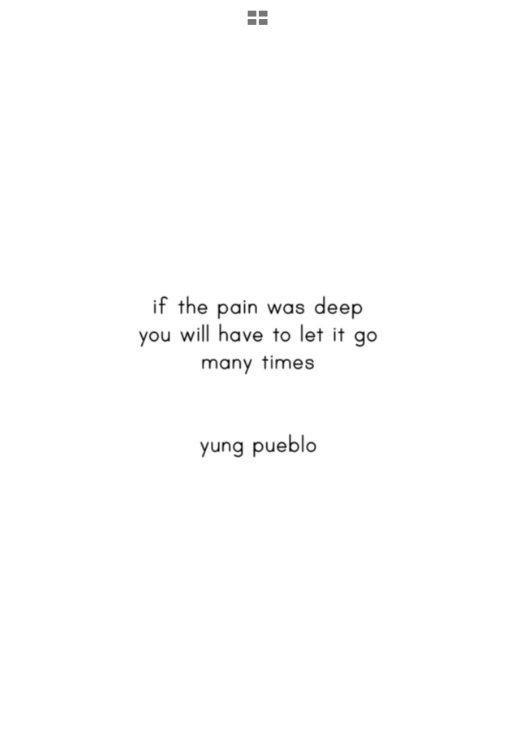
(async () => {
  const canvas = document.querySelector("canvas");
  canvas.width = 515;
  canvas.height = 731;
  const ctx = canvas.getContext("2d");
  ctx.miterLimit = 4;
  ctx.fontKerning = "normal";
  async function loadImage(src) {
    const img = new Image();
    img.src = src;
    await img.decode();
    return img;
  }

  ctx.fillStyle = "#ffffff";
  ctx.fillRect(0, 0, 515, 731);
  ctx.drawImage(await loadImage("img/1.png"), 247, 10, 21, 15);
  ctx.drawImage(await loadImage("img/2.png"), 138, 295, 240, 163);
})();
